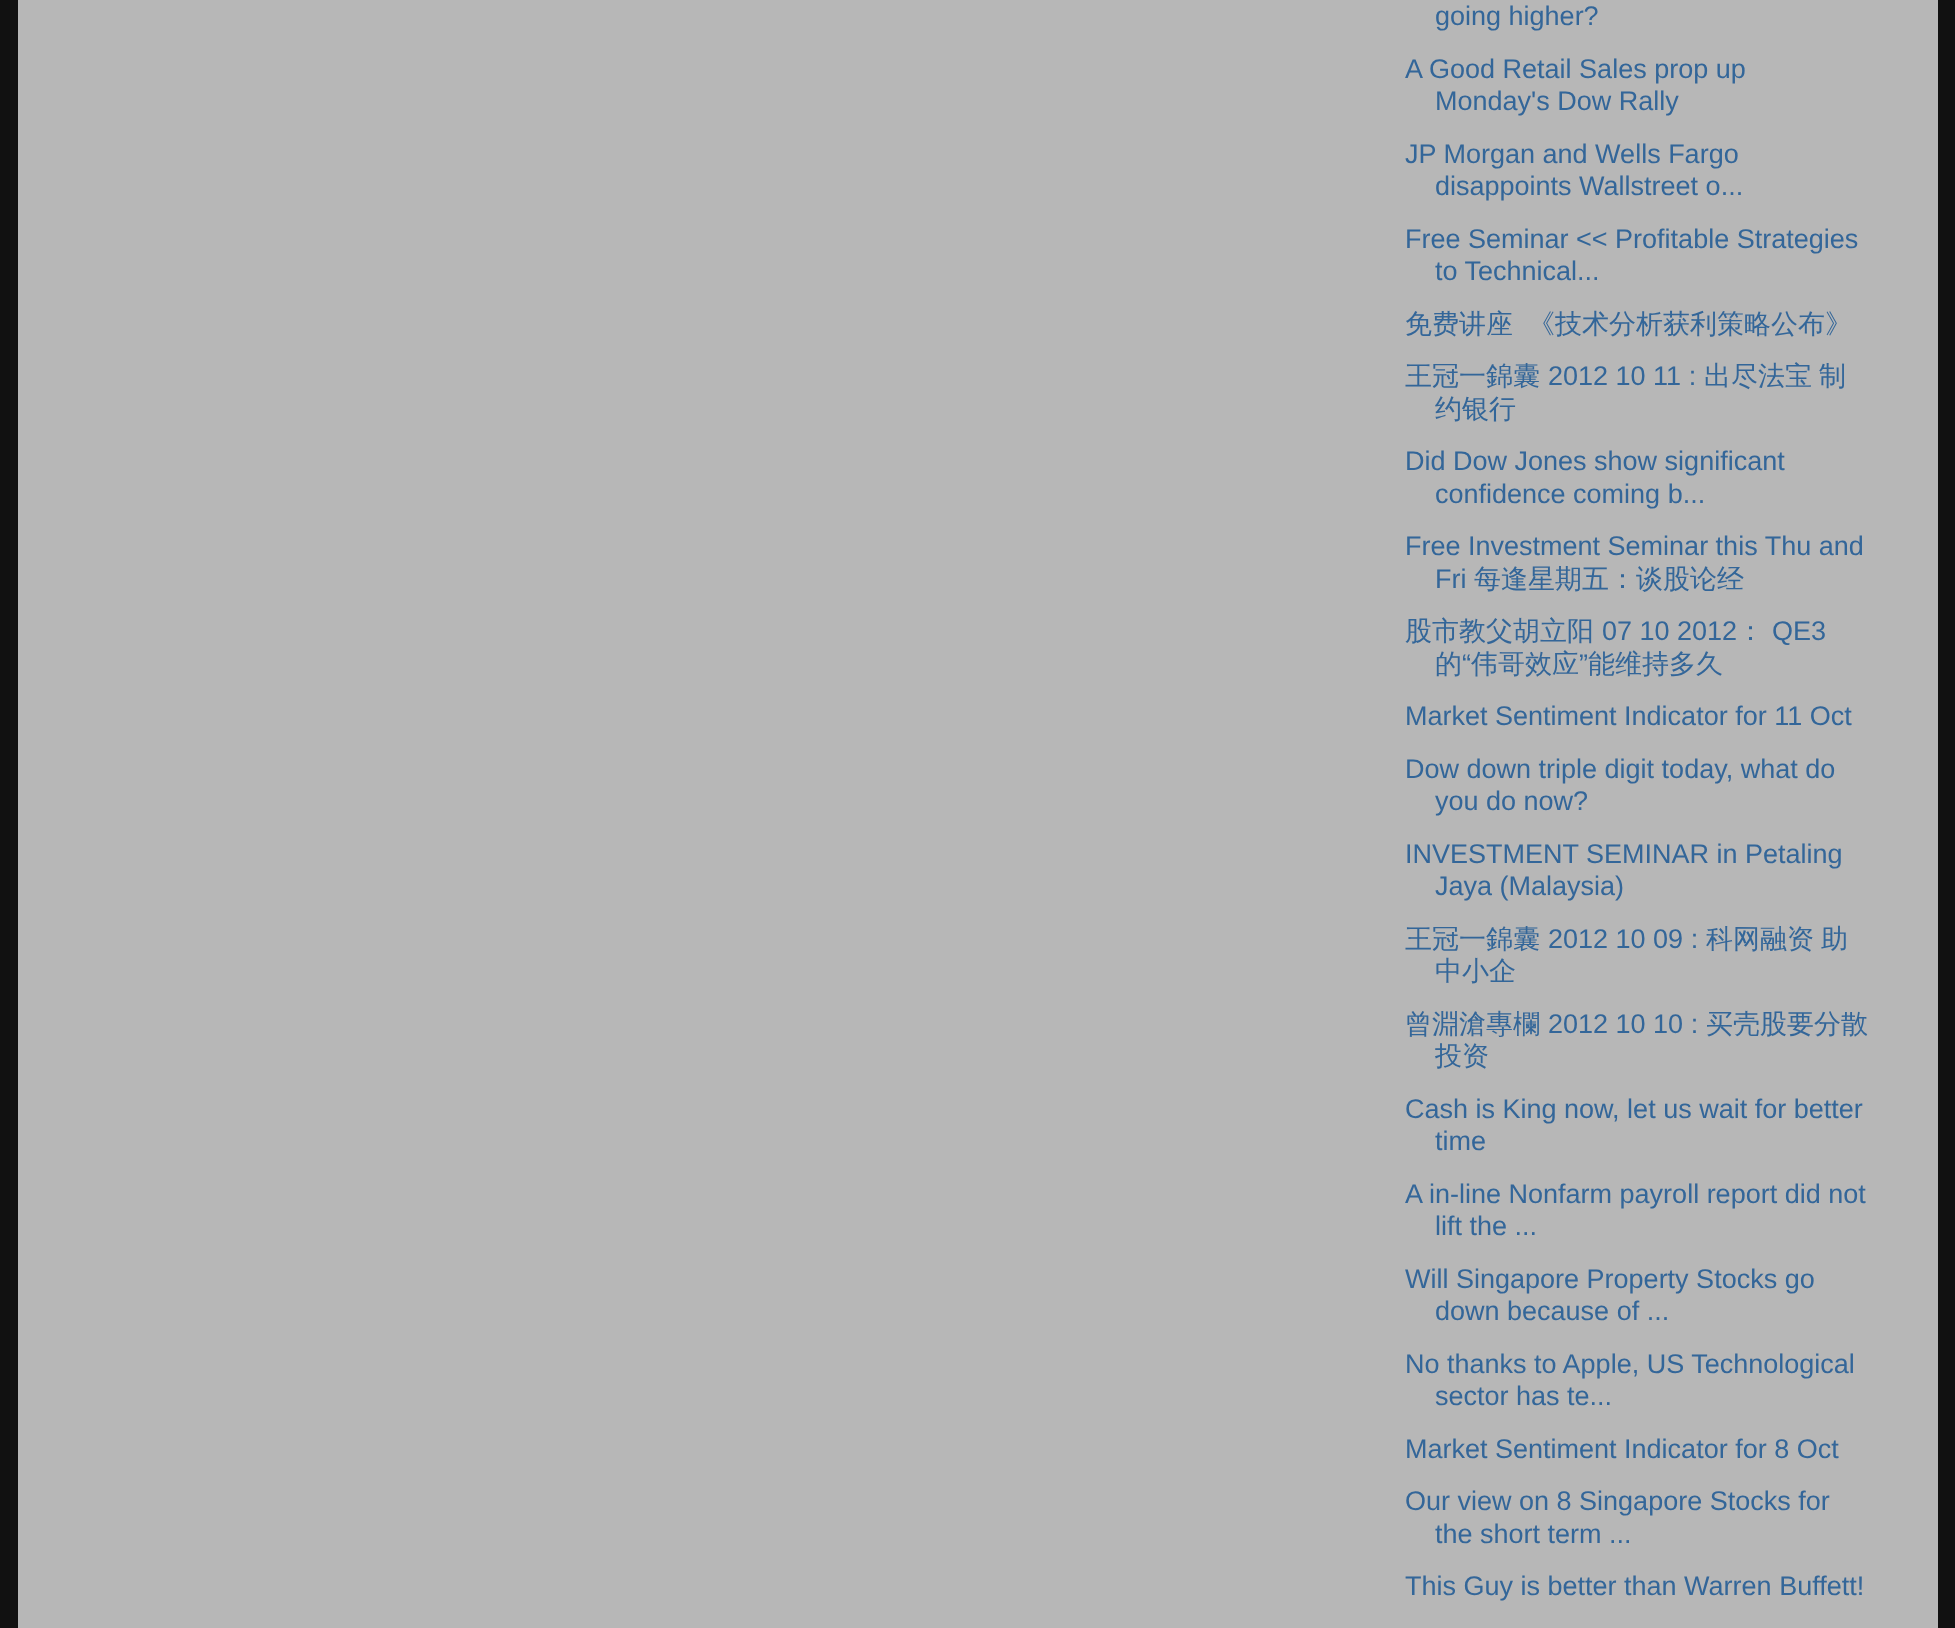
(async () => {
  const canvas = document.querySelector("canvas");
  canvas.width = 1955;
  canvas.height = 1628;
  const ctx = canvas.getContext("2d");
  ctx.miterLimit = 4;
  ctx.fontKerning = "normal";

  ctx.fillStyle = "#111111";
  ctx.fillRect(0, 0, 1955, 1628);
  ctx.fillStyle = "#b7b7b7";
  ctx.fillRect(18, 0, 1920, 1628);
  ctx.font = "27px Liberation Sans";
  ctx.fillStyle = "#336699";
  for (const [text, x, y] of [
    ["going higher?", 1435, 25],
    ["A Good Retail Sales prop up", 1405, 78],
    ["Monday's Dow Rally", 1435, 110],
    ["JP Morgan and Wells Fargo", 1405, 163],
    ["disappoints Wallstreet o...", 1435, 195],
    ["Free Seminar << Profitable Strategies", 1405, 248],
    ["to Technical...", 1435, 280],
  ]) {
    ctx.fillText(text, x, y);
  }
  ctx.wordSpacing = "7px";
  ctx.font = "500 27px WenQuanYi Zen Hei";
  ctx.fillText("免费讲座 《技术分析获利策略公布》", 1405, 333);
  ctx.wordSpacing = "0px";
  ctx.fillText("王冠一錦囊", 1405, 385);
  ctx.font = "27px Liberation Sans";
  ctx.fillText("2012 10 11 :", 1548, 385);
  ctx.font = "500 27px WenQuanYi Zen Hei";
  for (const [text, x, y] of [
    ["出尽法宝", 1704, 385],
    ["制", 1819, 385],
    ["约银行", 1435, 418],
  ]) {
    ctx.fillText(text, x, y);
  }
  ctx.font = "27px Liberation Sans";
  for (const [text, x, y] of [
    ["Did Dow Jones show significant", 1405, 470],
    ["confidence coming b...", 1435, 503],
    ["Free Investment Seminar this Thu and", 1405, 555],
    ["Fri", 1435, 588],
  ]) {
    ctx.fillText(text, x, y);
  }
  ctx.font = "500 27px WenQuanYi Zen Hei";
  ctx.fillText("每逢星期五：谈股论经", 1474, 588);
  ctx.fillText("股市教父胡立阳", 1405, 640);
  ctx.font = "27px Liberation Sans";
  ctx.fillText("07 10 2012", 1602, 640);
  ctx.font = "500 27px WenQuanYi Zen Hei";
  ctx.fillText("：", 1737, 640);
  ctx.font = "27px Liberation Sans";
  ctx.fillText("QE3", 1772, 640);
  ctx.font = "500 27px WenQuanYi Zen Hei";
  ctx.fillText("的", 1435, 673);
  ctx.font = "27px Liberation Sans";
  ctx.fillText("“", 1462, 673);
  ctx.font = "500 27px WenQuanYi Zen Hei";
  ctx.fillText("伟哥效应", 1471, 673);
  ctx.font = "27px Liberation Sans";
  ctx.fillText("”", 1579, 673);
  ctx.font = "500 27px WenQuanYi Zen Hei";
  ctx.fillText("能维持多久", 1588, 673);
  ctx.font = "27px Liberation Sans";
  for (const [text, x, y] of [
    ["Market Sentiment Indicator for 11 Oct", 1405, 725],
    ["Dow down triple digit today, what do", 1405, 778],
    ["you do now?", 1435, 810],
    ["INVESTMENT SEMINAR in Petaling", 1405, 863],
    ["Jaya (Malaysia)", 1435, 895],
  ]) {
    ctx.fillText(text, x, y);
  }
  ctx.font = "500 27px WenQuanYi Zen Hei";
  ctx.fillText("王冠一錦囊", 1405, 948);
  ctx.font = "27px Liberation Sans";
  ctx.fillText("2012 10 09 :", 1548, 948);
  ctx.font = "500 27px WenQuanYi Zen Hei";
  for (const [text, x, y] of [
    ["科网融资", 1706, 948],
    ["助", 1821, 948],
    ["中小企", 1435, 980],
    ["曾淵滄專欄", 1405, 1033],
  ]) {
    ctx.fillText(text, x, y);
  }
  ctx.font = "27px Liberation Sans";
  ctx.fillText("2012 10 10 :", 1548, 1033);
  ctx.font = "500 27px WenQuanYi Zen Hei";
  ctx.fillText("买壳股要分散", 1706, 1033);
  ctx.fillText("投资", 1435, 1065);
  ctx.font = "27px Liberation Sans";
  for (const [text, x, y] of [
    ["Cash is King now, let us wait for better", 1405, 1118],
    ["time", 1435, 1150],
    ["A in-line Nonfarm payroll report did not", 1405, 1203],
    ["lift the ...", 1435, 1235],
    ["Will Singapore Property Stocks go", 1405, 1288],
    ["down because of ...", 1435, 1320],
    ["No thanks to Apple, US Technological", 1405, 1373],
    ["sector has te...", 1435, 1405],
    ["Market Sentiment Indicator for 8 Oct", 1405, 1458],
    ["Our view on 8 Singapore Stocks for", 1405, 1510],
    ["the short term ...", 1435, 1543],
    ["This Guy is better than Warren Buffett!", 1405, 1595],
  ]) {
    ctx.fillText(text, x, y);
  }
})();
